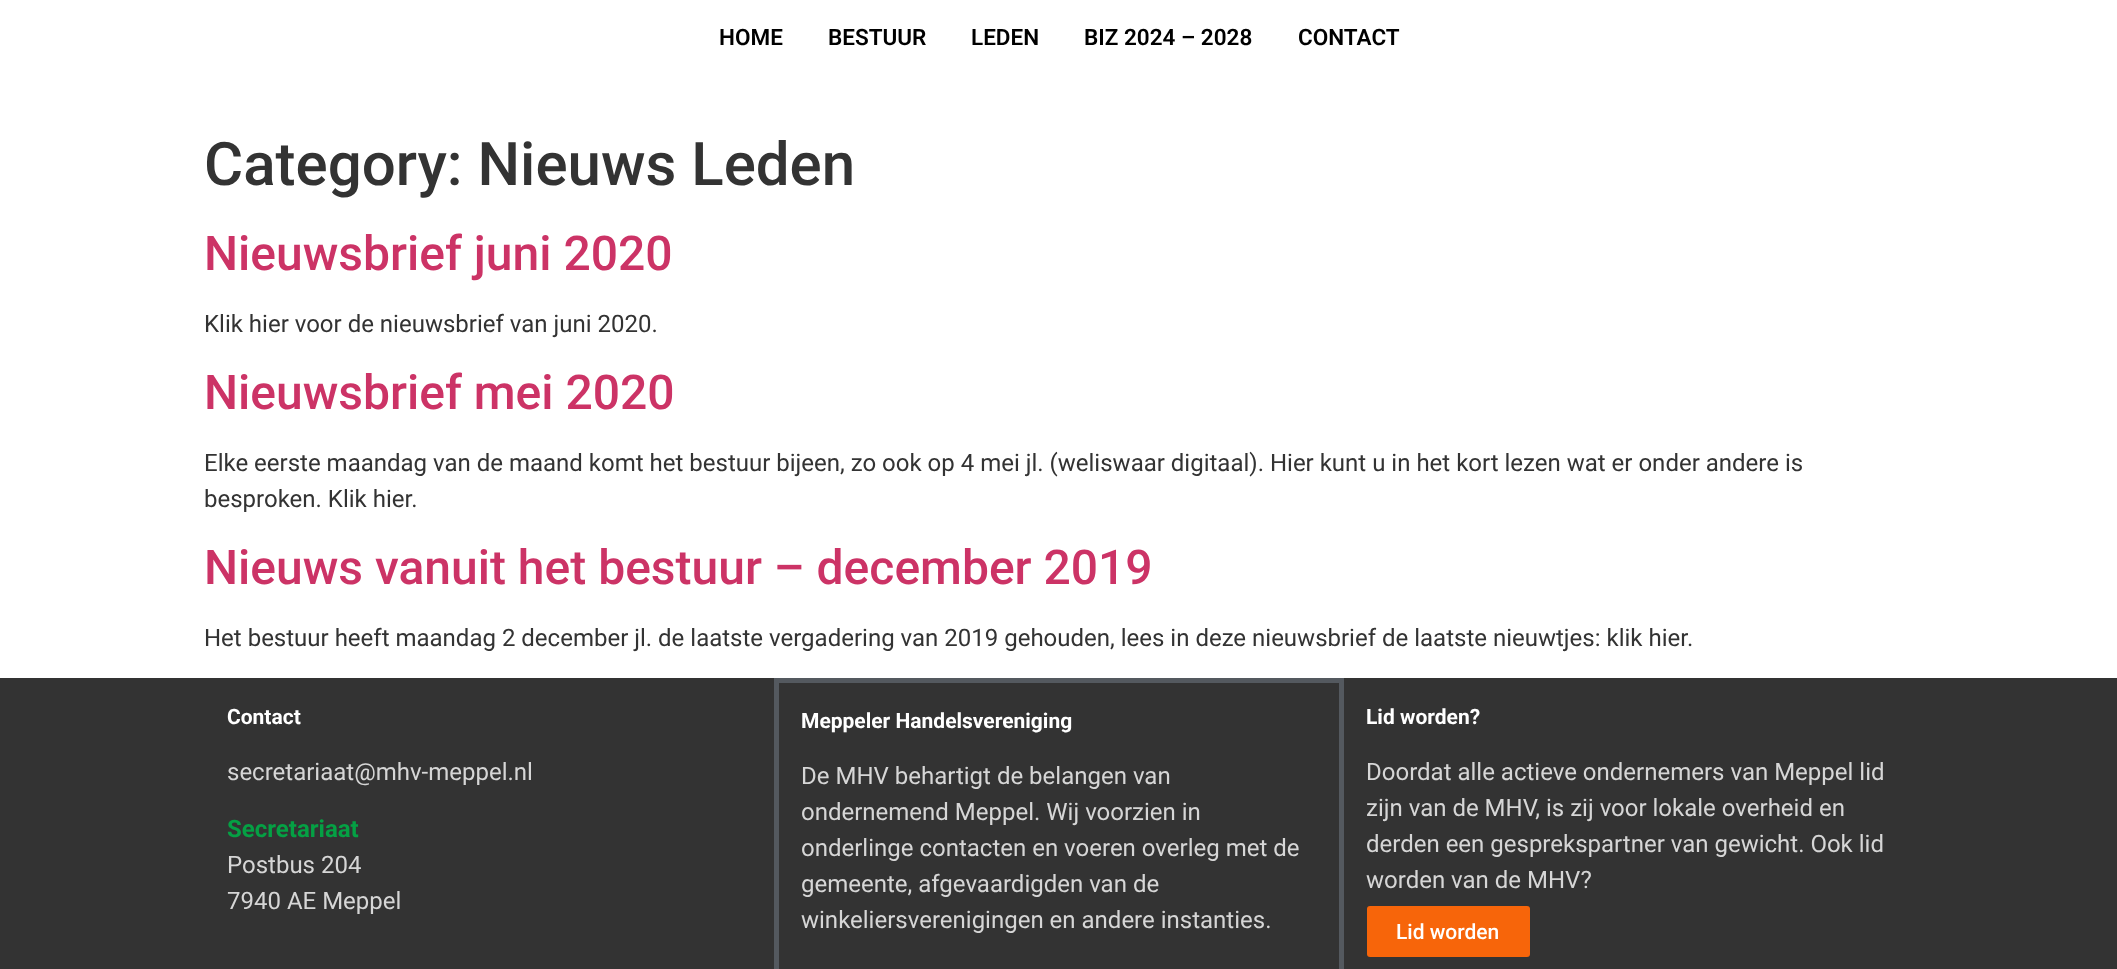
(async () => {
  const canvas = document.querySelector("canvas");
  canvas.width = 2117;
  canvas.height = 969;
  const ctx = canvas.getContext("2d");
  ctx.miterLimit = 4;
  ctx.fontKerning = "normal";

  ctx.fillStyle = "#ffffff";
  ctx.fillRect(0, 0, 2117, 969);
  ctx.fillStyle = "#333333";
  ctx.fillRect(0, 678, 2117, 291);
  ctx.strokeStyle = "#54595f";
  ctx.lineWidth = 5;
  ctx.strokeRect(776.5, 680.5, 565, 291);
  ctx.fillStyle = "#f7650a";
  ctx.beginPath();
  ctx.roundRect(1367, 906, 163, 51, 3);
  ctx.fill();
  ctx.font = "600 22.5px Roboto";
  ctx.fillStyle = "#000000";
  for (const [text, x, y] of [
    ["HOME", 719, 45],
    ["BESTUUR", 828, 45],
    ["LEDEN", 971, 45],
    ["BIZ 2024 – 2028", 1084, 45],
    ["CONTACT", 1298, 45],
  ]) {
    ctx.fillText(text, x, y);
  }
  ctx.font = "500 60px Roboto";
  ctx.fillStyle = "#333333";
  ctx.fillText("Category: Nieuws Leden", 204, 185);
  ctx.font = "500 48px Roboto";
  ctx.fillStyle = "#cc3366";
  ctx.fillText("Nieuwsbrief juni 2020", 204, 270);
  ctx.font = "24px Roboto";
  ctx.fillStyle = "#333333";
  ctx.fillText("Klik hier voor de nieuwsbrief van juni 2020.", 204, 332);
  ctx.font = "500 48px Roboto";
  ctx.fillStyle = "#cc3366";
  ctx.fillText("Nieuwsbrief mei 2020", 204, 409);
  ctx.font = "24px Roboto";
  ctx.fillStyle = "#333333";
  ctx.fillText("Elke eerste maandag van de maand komt het bestuur bijeen, zo ook op 4 mei jl. (weliswaar digitaal). Hier kunt u in het kort lezen wat er onder andere is", 204, 471);
  ctx.fillText("besproken. Klik hier.", 204, 507);
  ctx.font = "500 48px Roboto";
  ctx.fillStyle = "#cc3366";
  ctx.fillText("Nieuws vanuit het bestuur – december 2019", 204, 584);
  ctx.font = "24px Roboto";
  ctx.fillStyle = "#333333";
  ctx.fillText("Het bestuur heeft maandag 2 december jl. de laatste vergadering van 2019 gehouden, lees in deze nieuwsbrief de laatste nieuwtjes: klik hier.", 204, 646);
  ctx.font = "bold 21px Roboto";
  ctx.fillStyle = "#ffffff";
  ctx.fillText("Contact", 227, 724);
  ctx.font = "24px Roboto";
  ctx.fillStyle = "#d6d6d6";
  ctx.fillText("secretariaat@mhv-meppel.nl", 227, 780);
  ctx.font = "bold 24px Roboto";
  ctx.fillStyle = "#05a044";
  ctx.fillText("Secretariaat", 227, 837);
  ctx.font = "24px Roboto";
  ctx.fillStyle = "#d6d6d6";
  ctx.fillText("Postbus 204", 227, 873);
  ctx.fillText("7940 AE Meppel", 227, 909);
  ctx.font = "bold 21px Roboto";
  ctx.fillStyle = "#ffffff";
  ctx.fillText("Meppeler Handelsvereniging", 801, 728);
  ctx.font = "24px Roboto";
  ctx.fillStyle = "#d6d6d6";
  for (const [text, x, y] of [
    ["De MHV behartigt de belangen van", 801, 784],
    ["ondernemend Meppel. Wij voorzien in", 801, 820],
    ["onderlinge contacten en voeren overleg met de", 801, 856],
    ["gemeente, afgevaardigden van de", 801, 892],
    ["winkeliersverenigingen en andere instanties.", 801, 928],
  ]) {
    ctx.fillText(text, x, y);
  }
  ctx.font = "bold 21px Roboto";
  ctx.fillStyle = "#ffffff";
  ctx.fillText("Lid worden?", 1366, 724);
  ctx.font = "24px Roboto";
  ctx.fillStyle = "#d6d6d6";
  for (const [text, x, y] of [
    ["Doordat alle actieve ondernemers van Meppel lid", 1366, 780],
    ["zijn van de MHV, is zij voor lokale overheid en", 1366, 816],
    ["derden een gesprekspartner van gewicht. Ook lid", 1366, 852],
    ["worden van de MHV?", 1366, 888],
  ]) {
    ctx.fillText(text, x, y);
  }
  ctx.font = "500 21px Roboto";
  ctx.fillStyle = "#ffffff";
  ctx.fillText("Lid worden", 1396, 939);
})();
